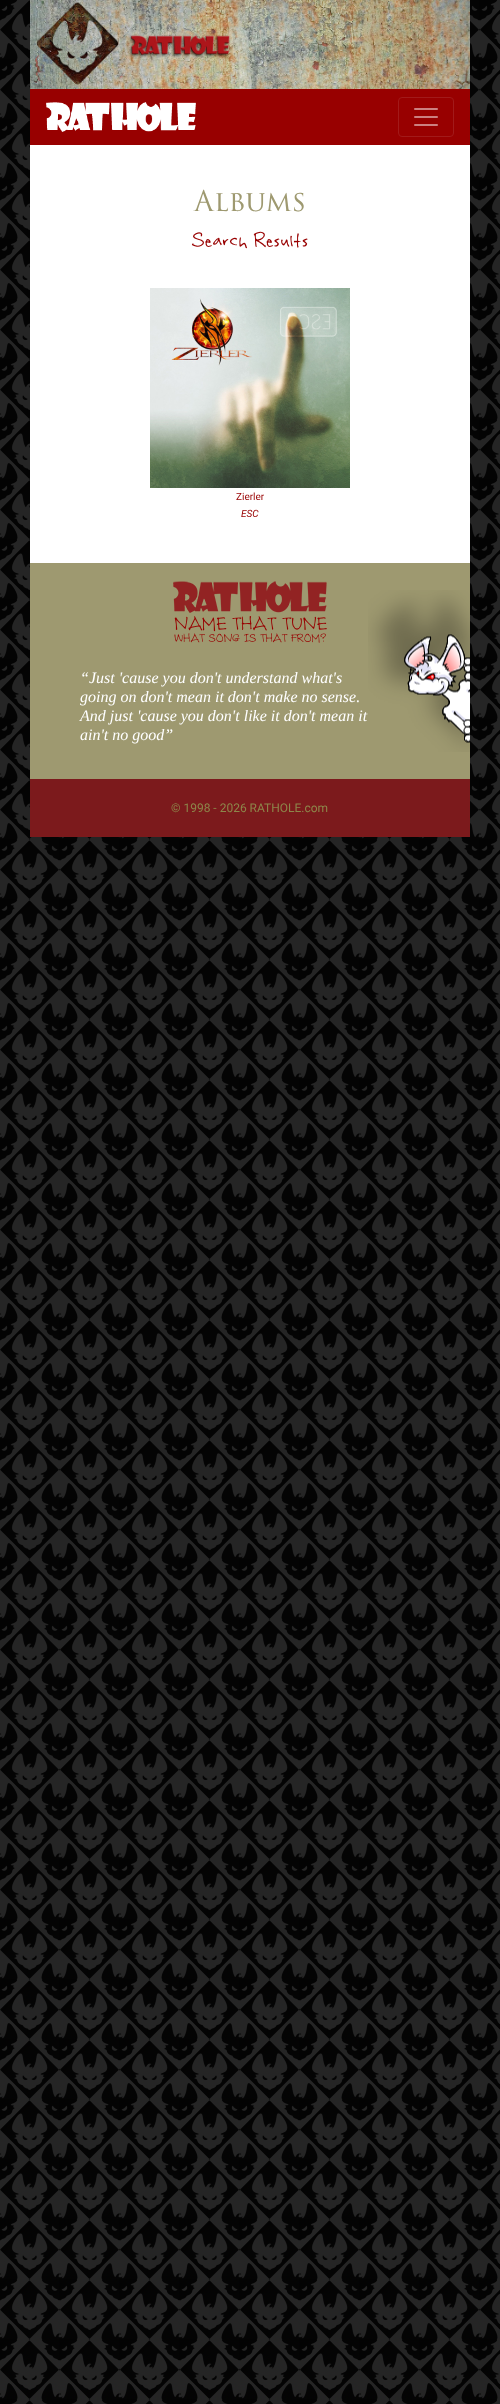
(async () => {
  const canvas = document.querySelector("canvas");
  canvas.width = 500;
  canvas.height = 2404;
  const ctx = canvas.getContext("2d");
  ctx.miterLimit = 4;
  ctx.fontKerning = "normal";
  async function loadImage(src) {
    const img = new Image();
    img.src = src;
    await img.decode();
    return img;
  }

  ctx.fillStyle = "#ffffff";
  ctx.fillRect(0, 0, 500, 2404);
  ctx.drawImage(await loadImage("img/1.png"), 0, 0, 500, 2404);
  ctx.drawImage(await loadImage("img/2.png"), 30, 0, 440, 89);
  ctx.fillStyle = "#980000";
  ctx.fillRect(30, 89, 440, 56);
  ctx.drawImage(await loadImage("img/3.png"), 46, 102, 150, 30);
  ctx.beginPath();
  ctx.roundRect(398.5, 97.5, 55, 39, 3.5);
  ctx.strokeStyle = "#a21a1a";
  ctx.stroke();
  ctx.drawImage(await loadImage("img/4.png"), 414, 108, 24, 18);
  ctx.fillStyle = "#ffffff";
  ctx.fillRect(30, 145, 440, 418);
  ctx.drawImage(await loadImage("img/5.png"), 150, 288, 200, 200);
  ctx.fillStyle = "#9e9970";
  ctx.fillRect(30, 563, 440, 216);
  ctx.drawImage(await loadImage("img/6.png"), 368, 590, 102, 162);
  ctx.drawImage(await loadImage("img/7.png"), 173, 581, 154, 32);
  ctx.fillStyle = "#7c1a1c";
  ctx.fillRect(30, 779, 440, 58);
  ctx.font = "28px 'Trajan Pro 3'";
  ctx.fillStyle = "#9e9970";
  ctx.fillText("Albums", 194, 211);
  ctx.font = "24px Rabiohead";
  ctx.fillStyle = "#980000";
  ctx.fillText("Search Results", 191, 247);
  ctx.font = "10px Roboto";
  ctx.fillText("Zierler", 236, 500);
  ctx.font = "italic 10px Roboto";
  ctx.fillText("ESC", 241, 517);
  ctx.font = "21px Rabiohead";
  ctx.fillText("NAME THAT TUNE", 174, 630);
  ctx.font = "13px Rabiohead";
  ctx.fillText("WHAT SONG IS THAT FROM?", 174, 642);
  ctx.font = "italic 16px Liberation Serif";
  ctx.fillStyle = "#ffffff";
  for (const [text, x, y] of [
    ["“Just 'cause you don't understand what's", 80, 683],
    ["going on don't mean it don't make no sense.", 80, 702],
    ["And just 'cause you don't like it don't mean it", 80, 721],
    ["ain't no good”", 80, 740],
  ]) {
    ctx.fillText(text, x, y);
  }
  ctx.font = "12px Roboto";
  ctx.fillStyle = "#8d864a";
  ctx.fillText("© 1998 - 2026 RATHOLE.com", 171, 812);
})();
